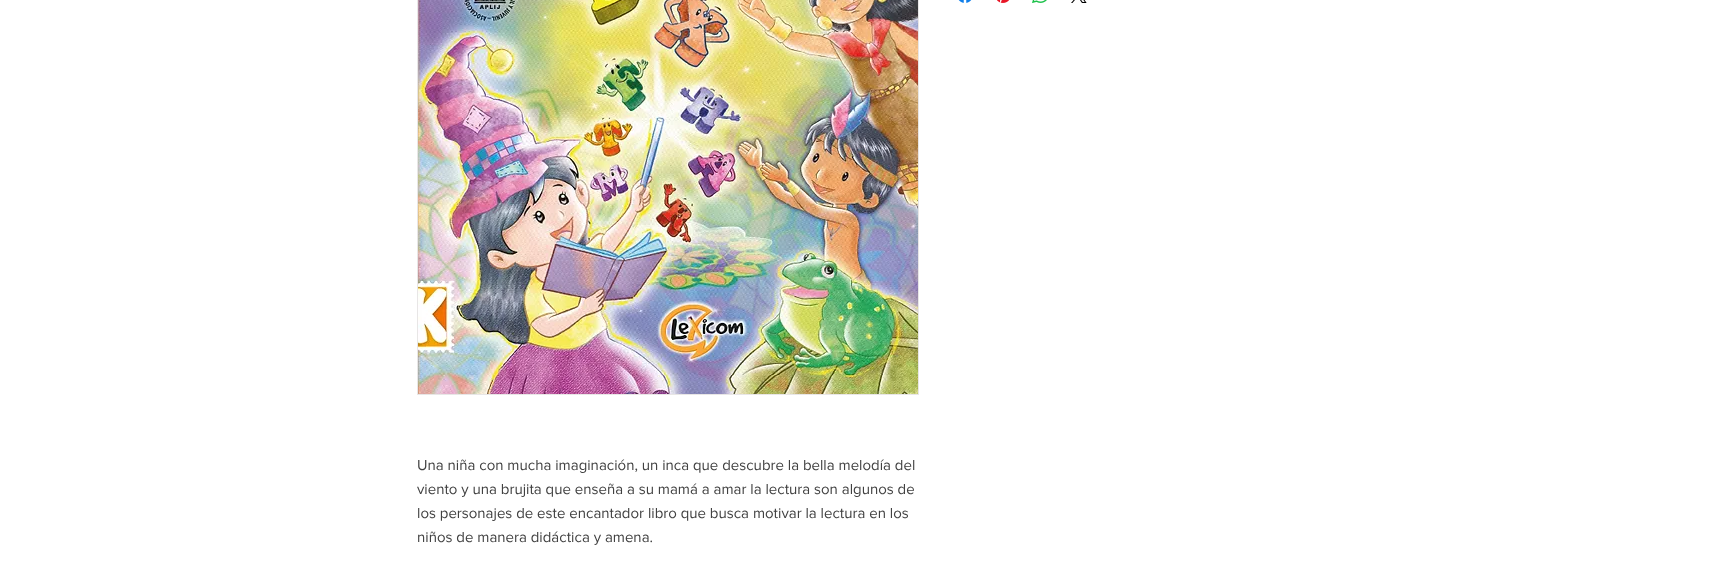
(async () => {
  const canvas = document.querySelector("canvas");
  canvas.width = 1724;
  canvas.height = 579;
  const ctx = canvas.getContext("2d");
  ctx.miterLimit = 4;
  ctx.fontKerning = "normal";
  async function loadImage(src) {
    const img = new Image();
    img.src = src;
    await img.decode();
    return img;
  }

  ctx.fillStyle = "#ffffff";
  ctx.fillRect(0, 0, 1724, 579);
  ctx.drawImage(await loadImage("img/1.png"), 958, 0, 14, 3);
  ctx.drawImage(await loadImage("img/2.png"), 997, 0, 12, 3);
  ctx.drawImage(await loadImage("img/3.png"), 1032, 0, 15, 3);
  ctx.drawImage(await loadImage("img/4.png"), 1071, 0, 16, 3);
  ctx.strokeStyle = "#e8e6e6";
  ctx.strokeRect(417.5, -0.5, 501, 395);
  ctx.drawImage(await loadImage("img/5.png"), 418, 0, 500, 394);
  ctx.font = "15px 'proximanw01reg'";
  ctx.fillStyle = "#414141";
  for (const [text, x, y] of [
    ["Una niña con mucha imaginación, un inca que descubre la bella melodía del", 417, 470],
    ["viento y una brujita que enseña a su mamá a amar la lectura son algunos de", 417, 494],
    ["los personajes de este encantador libro que busca motivar la lectura en los", 417, 518],
    ["niños de manera didáctica y amena.", 417, 542],
  ]) {
    ctx.fillText(text, x, y);
  }
})();
